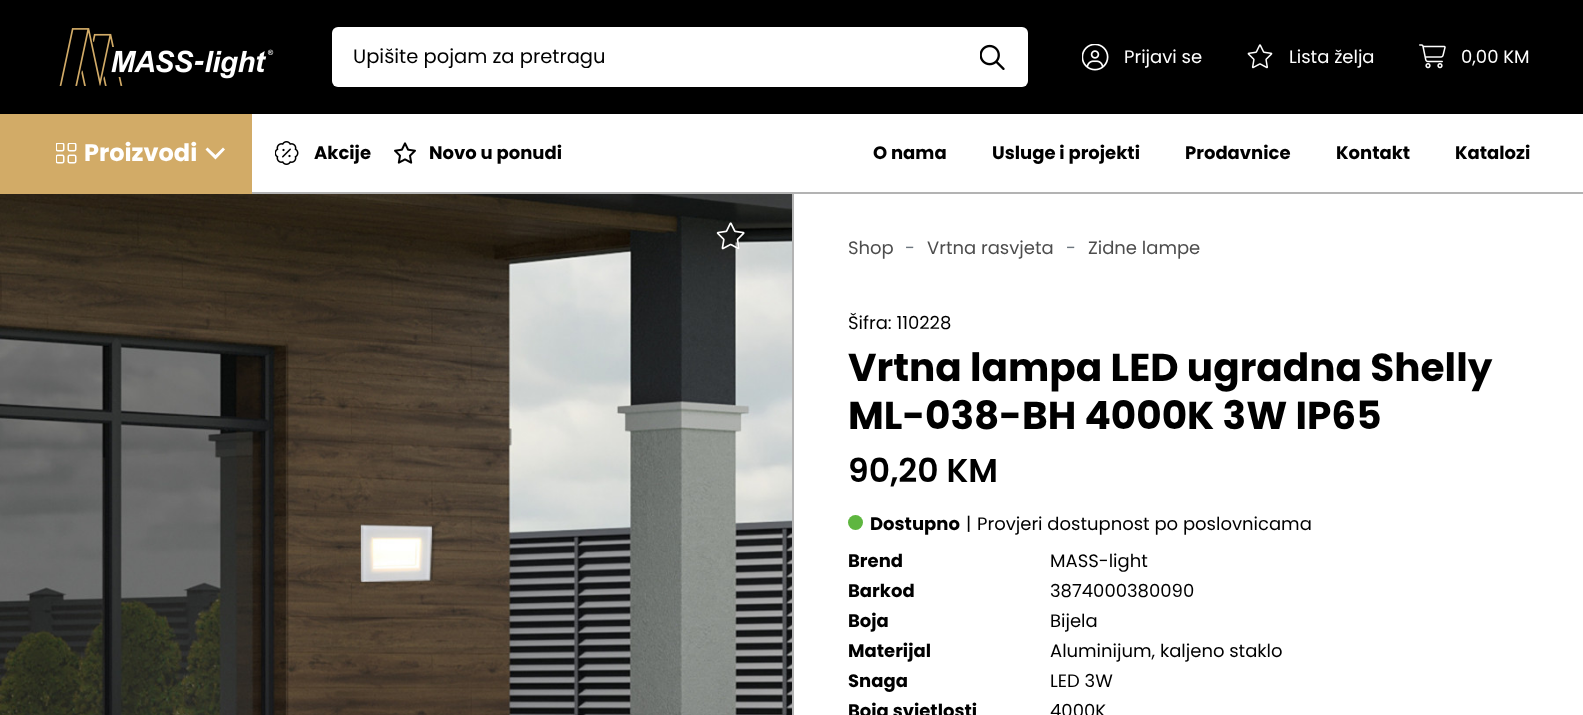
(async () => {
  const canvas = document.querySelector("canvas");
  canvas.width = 1583;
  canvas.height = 715;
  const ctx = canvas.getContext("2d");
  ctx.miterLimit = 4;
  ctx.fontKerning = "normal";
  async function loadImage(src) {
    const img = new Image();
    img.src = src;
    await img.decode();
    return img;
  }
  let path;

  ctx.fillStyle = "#ffffff";
  ctx.fillRect(0, 0, 1583, 715);
  ctx.fillStyle = "#000000";
  ctx.fillRect(0, 0, 1583, 114);
  ctx.drawImage(await loadImage("img/1.png"), 59, 28, 215, 58);
  ctx.fillStyle = "#ffffff";
  ctx.beginPath();
  ctx.roundRect(332, 27, 627, 60, [6, 0, 0, 6]);
  ctx.fill();
  ctx.beginPath();
  ctx.roundRect(959, 27, 69, 60, [0, 6, 6, 0]);
  ctx.fill();
  ctx.drawImage(await loadImage("img/2.png"), 980, 44, 25, 26);
  ctx.drawImage(await loadImage("img/3.png"), 1082, 44, 27, 27);
  ctx.drawImage(await loadImage("img/4.png"), 1247, 44, 26, 25);
  ctx.drawImage(await loadImage("img/5.png"), 1419, 44, 27, 25);
  ctx.fillStyle = "#d2ab67";
  ctx.fillRect(0, 114, 252, 80);
  ctx.drawImage(await loadImage("img/6.png"), 56, 143, 21, 21);
  ctx.fillStyle = "#ffffff";
  path = new Path2D("M215.5 159.5L205.5 149.5L207.5 147.5L215.5 155L223 147.5L225 149.5Z");
  ctx.fill(path);
  ctx.drawImage(await loadImage("img/7.png"), 275, 141, 24, 24);
  ctx.drawImage(await loadImage("img/8.png"), 394, 142, 22, 22);
  ctx.fillStyle = "#b3b3b3";
  ctx.fillRect(792, 192, 2, 523);
  ctx.fillRect(252, 192, 1331, 2);
  ctx.drawImage(await loadImage("img/9.png"), 0, 194, 792, 521);
  ctx.drawImage(await loadImage("img/10.png"), 716, 222, 29, 28);
  ctx.fillStyle = "#5eb63f";
  ctx.beginPath();
  ctx.arc(855.5, 522.5, 7.5, 0, Math.PI * 2);
  ctx.fill();
  ctx.save();
  ctx.beginPath();
  ctx.rect(353, 48, 585, 20);
  ctx.clip();
  ctx.font = "19.5px Poppins";
  ctx.fillStyle = "#000000";
  ctx.fillText("Upišite pojam za pretragu", 353, 63);
  ctx.restore();
  ctx.font = "18px Poppins";
  ctx.fillStyle = "#ffffff";
  for (const [text, x, y] of [
    ["Prijavi se", 1124, 63],
    ["Lista želja", 1289, 63],
    ["0,00 KM", 1461, 63],
  ]) {
    ctx.fillText(text, x, y);
  }
  ctx.font = "bold 24px Poppins";
  ctx.fillText("Proizvodi", 84, 161);
  ctx.font = "bold 18px Poppins";
  ctx.fillStyle = "#000000";
  for (const [text, x, y] of [
    ["Akcije", 314, 159],
    ["Novo u ponudi", 429, 159],
    ["O nama", 873, 159],
    ["Usluge i projekti", 992, 159],
    ["Prodavnice", 1185, 159],
    ["Kontakt", 1336, 159],
    ["Katalozi", 1455, 159],
  ]) {
    ctx.fillText(text, x, y);
  }
  ctx.font = "18px Poppins";
  ctx.fillStyle = "#4d4d4d";
  ctx.fillText("Shop", 848, 254);
  ctx.fillStyle = "#6c757d";
  ctx.fillText("-", 905, 254);
  ctx.fillStyle = "#4d4d4d";
  ctx.fillText("Vrtna rasvjeta", 927, 254);
  ctx.fillStyle = "#6c757d";
  ctx.fillText("-", 1066, 254);
  ctx.fillStyle = "#4d4d4d";
  ctx.fillText("Zidne lampe", 1088, 254);
  ctx.fillStyle = "#000000";
  ctx.fillText("Šifra: 110228", 848, 329);
  ctx.font = "bold 39px Poppins";
  ctx.fillText("Vrtna lampa LED ugradna Shelly", 848, 381);
  ctx.fillText("ML-038-BH 4000K 3W IP65", 848, 429);
  ctx.font = "600 33px Poppins";
  ctx.fillText("90,20 KM", 848, 482);
  ctx.font = "bold 18px Poppins";
  ctx.fillText("Dostupno", 870, 530);
  ctx.font = "18px Poppins";
  ctx.fillText("|", 966, 530);
  ctx.fillText("Provjeri dostupnost po poslovnicama", 977, 530);
  ctx.font = "bold 18px Poppins";
  ctx.fillText("Brend", 848, 567);
  ctx.font = "18px Poppins";
  ctx.fillText("MASS-light", 1050, 567);
  ctx.font = "bold 18px Poppins";
  ctx.fillText("Barkod", 848, 597);
  ctx.font = "18px Poppins";
  ctx.fillText("3874000380090", 1050, 597);
  ctx.font = "bold 18px Poppins";
  ctx.fillText("Boja", 848, 627);
  ctx.font = "18px Poppins";
  ctx.fillText("Bijela", 1050, 627);
  ctx.font = "bold 18px Poppins";
  ctx.fillText("Materijal", 848, 657);
  ctx.font = "18px Poppins";
  ctx.fillText("Aluminijum, kaljeno staklo", 1050, 657);
  ctx.font = "bold 18px Poppins";
  ctx.fillText("Snaga", 848, 687);
  ctx.font = "18px Poppins";
  ctx.fillText("LED 3W", 1050, 687);
  ctx.font = "bold 18px Poppins";
  ctx.fillText("Boja svjetlosti", 848, 717);
  ctx.font = "18px Poppins";
  ctx.fillText("4000K", 1050, 717);
})();
